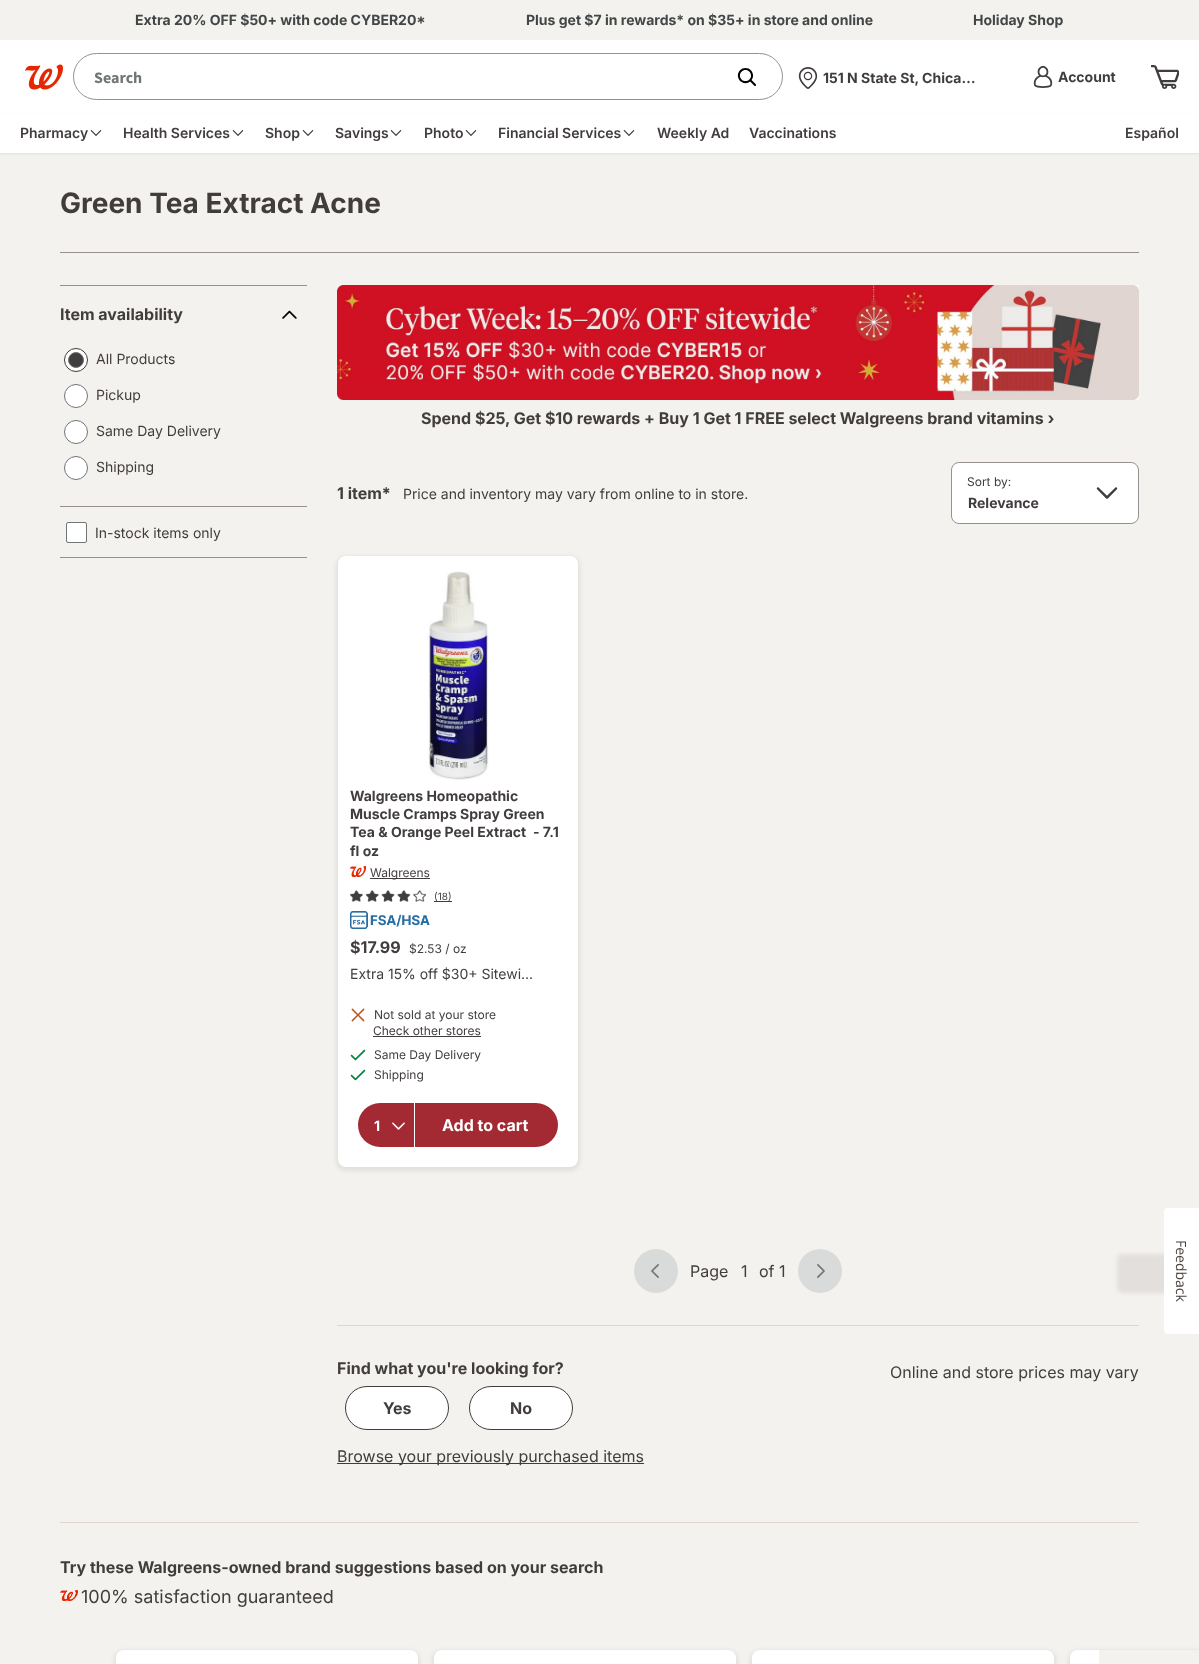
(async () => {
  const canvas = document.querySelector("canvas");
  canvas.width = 1199;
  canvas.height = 1664;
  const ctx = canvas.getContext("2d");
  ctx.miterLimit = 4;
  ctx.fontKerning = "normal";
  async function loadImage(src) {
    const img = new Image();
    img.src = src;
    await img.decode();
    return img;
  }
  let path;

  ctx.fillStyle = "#ffffff";
  ctx.fillRect(0, 0, 1199, 1664);
  ctx.fillStyle = "#f4f2ef";
  ctx.fillRect(0, 0, 1199, 40);
  ctx.drawImage(await loadImage("img/1.png"), 25, 64, 38, 26);
  ctx.beginPath();
  ctx.roundRect(73.5, 53.5, 709, 46, 23);
  ctx.strokeStyle = "#989090";
  ctx.stroke();
  ctx.drawImage(await loadImage("img/2.png"), 737, 68, 19, 18);
  ctx.drawImage(await loadImage("img/3.png"), 798, 67, 20, 22);
  ctx.drawImage(await loadImage("img/4.png"), 1033, 66, 20, 22);
  ctx.drawImage(await loadImage("img/5.png"), 1151, 65, 28, 24);
  ctx.fillRect(0, 153, 1199, 1511);
  ctx.save();
  path = new Path2D("M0 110H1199V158H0ZM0 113H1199V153H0Z");
  ctx.clip(path, "evenodd");
  ctx.fillStyle = "rgba(207, 207, 207, 0.5)";
  ctx.filter = "blur(1px)";
  ctx.beginPath();
  ctx.rect(0, 114, 1199, 40);
  ctx.fill();
  ctx.filter = "none";
  ctx.restore();
  ctx.drawImage(await loadImage("img/6.png"), 90, 130, 12, 6);
  ctx.drawImage(await loadImage("img/6.png"), 232, 130, 12, 6);
  ctx.drawImage(await loadImage("img/6.png"), 302, 130, 12, 6);
  ctx.drawImage(await loadImage("img/6.png"), 390, 130, 12, 6);
  ctx.drawImage(await loadImage("img/6.png"), 465, 130, 12, 6);
  ctx.drawImage(await loadImage("img/6.png"), 623, 130, 12, 6);
  for (const [x, y, w, h, color] of [
    [60, 252, 1079, 1, "#989090"],
    [60, 285, 247, 1, "#989090"],
    [60, 506, 247, 1, "#989090"],
  ]) {
    ctx.fillStyle = color;
    ctx.fillRect(x, y, w, h);
  }
  ctx.drawImage(await loadImage("img/7.png"), 282, 310, 15, 9);
  ctx.fillStyle = "#ffffff";
  ctx.beginPath();
  ctx.arc(76, 360, 11.5, 0, Math.PI * 2);
  ctx.fill();
  ctx.strokeStyle = "#413d3c";
  ctx.stroke();
  ctx.fillStyle = "#413d3c";
  ctx.beginPath();
  ctx.arc(76, 360, 7.5, 0, Math.PI * 2);
  ctx.fill();
  ctx.strokeStyle = "#707575";
  ctx.stroke();
  ctx.fillStyle = "#ffffff";
  ctx.beginPath();
  ctx.arc(76, 396, 11.5, 0, Math.PI * 2);
  ctx.fill();
  ctx.stroke();
  ctx.beginPath();
  ctx.arc(76, 432, 11.5, 0, Math.PI * 2);
  ctx.fill();
  ctx.stroke();
  ctx.beginPath();
  ctx.arc(76, 468, 11.5, 0, Math.PI * 2);
  ctx.fill();
  ctx.stroke();
  ctx.fillStyle = "#989090";
  ctx.fillRect(60, 557, 247, 1);
  ctx.fillStyle = "#ffffff";
  ctx.beginPath();
  ctx.roundRect(66.5, 522.5, 20, 20, 1.5);
  ctx.fill();
  ctx.stroke();
  ctx.drawImage(await loadImage("img/8.png"), 337, 285, 802, 115);
  ctx.beginPath();
  ctx.roundRect(951.5, 462.5, 187, 61, 7.5);
  ctx.fill();
  ctx.strokeStyle = "#989090";
  ctx.stroke();
  ctx.drawImage(await loadImage("img/9.png"), 1096, 487, 22, 12);
  ctx.fillStyle = "rgba(65, 61, 60, 0.1)";
  ctx.filter = "blur(2px)";
  ctx.beginPath();
  ctx.roundRect(336, 556, 244, 615, 10);
  ctx.fill();
  ctx.filter = "none";
  ctx.fillStyle = "#ffffff";
  ctx.beginPath();
  ctx.roundRect(338, 556, 240, 611, 8);
  ctx.fill();
  ctx.drawImage(await loadImage("img/10.png"), 427, 571, 62, 209);
  ctx.drawImage(await loadImage("img/11.png"), 350, 866, 16, 11);
  ctx.fillStyle = "#413d3c";
  ctx.fillRect(370, 878, 60, 1);
  ctx.drawImage(await loadImage("img/12.png"), 350, 890, 76, 12);
  ctx.fillRect(434, 901, 18, 1);
  ctx.drawImage(await loadImage("img/13.png"), 350, 911, 80, 18);
  ctx.drawImage(await loadImage("img/14.png"), 351, 1008, 14, 14);
  ctx.fillRect(373, 1036, 108, 1);
  ctx.drawImage(await loadImage("img/15.png"), 350, 1049, 16, 12);
  ctx.drawImage(await loadImage("img/15.png"), 350, 1069, 16, 12);
  ctx.fillStyle = "#a32a33";
  ctx.beginPath();
  ctx.roundRect(358, 1103, 56, 44, [22, 0, 0, 22]);
  ctx.fill();
  ctx.drawImage(await loadImage("img/16.png"), 392, 1122, 13, 8);
  ctx.beginPath();
  ctx.roundRect(415, 1103, 143, 44, [0, 22, 22, 0]);
  ctx.fill();
  ctx.fillStyle = "#d9dada";
  ctx.beginPath();
  ctx.arc(656, 1271, 22, 0, Math.PI * 2);
  ctx.fill();
  ctx.drawImage(await loadImage("img/17.png"), 651, 1264, 8, 14);
  ctx.beginPath();
  ctx.arc(820, 1271, 22, 0, Math.PI * 2);
  ctx.fill();
  ctx.drawImage(await loadImage("img/18.png"), 817, 1264, 8, 14);
  ctx.fillStyle = "#ded5d0";
  ctx.fillRect(337, 1325, 802, 1);
  ctx.fillStyle = "#ffffff";
  ctx.beginPath();
  ctx.roundRect(345.5, 1386.5, 103, 43, 21.5);
  ctx.fill();
  ctx.strokeStyle = "#413d3c";
  ctx.stroke();
  ctx.beginPath();
  ctx.roundRect(469.5, 1386.5, 103, 43, 21.5);
  ctx.fill();
  ctx.stroke();
  ctx.fillStyle = "#413d3c";
  ctx.fillRect(337, 1463, 307, 1);
  ctx.fillStyle = "#ded5d0";
  ctx.fillRect(60, 1522, 1079, 1);
  ctx.drawImage(await loadImage("img/19.png"), 60, 1590, 18, 11);
  ctx.fillStyle = "rgba(65, 61, 60, 0.1)";
  ctx.filter = "blur(2px)";
  ctx.beginPath();
  ctx.roundRect(114, 1650, 306, 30, 10);
  ctx.fill();
  ctx.filter = "none";
  ctx.fillStyle = "#ffffff";
  ctx.beginPath();
  ctx.roundRect(116, 1650, 302, 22, 8);
  ctx.fill();
  ctx.fillStyle = "rgba(65, 61, 60, 0.1)";
  ctx.filter = "blur(2px)";
  ctx.beginPath();
  ctx.roundRect(432, 1650, 306, 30, 10);
  ctx.fill();
  ctx.filter = "none";
  ctx.fillStyle = "#ffffff";
  ctx.beginPath();
  ctx.roundRect(434, 1650, 302, 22, 8);
  ctx.fill();
  ctx.fillStyle = "rgba(65, 61, 60, 0.1)";
  ctx.filter = "blur(2px)";
  ctx.beginPath();
  ctx.roundRect(750, 1650, 306, 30, 10);
  ctx.fill();
  ctx.filter = "none";
  ctx.fillStyle = "#ffffff";
  ctx.beginPath();
  ctx.roundRect(752, 1650, 302, 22, 8);
  ctx.fill();
  ctx.save();
  path = new Path2D("M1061 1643H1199V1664H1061ZM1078 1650H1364C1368.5 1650 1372 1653.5 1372 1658V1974C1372 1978.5 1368.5 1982 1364 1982H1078C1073.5 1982 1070 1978.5 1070 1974V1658C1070 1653.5 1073.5 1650 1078 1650Z");
  ctx.clip(path, "evenodd");
  ctx.fillStyle = "rgba(65, 61, 60, 0.1)";
  ctx.filter = "blur(2px)";
  ctx.beginPath();
  ctx.roundRect(1068, 1650, 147, 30, 10);
  ctx.fill();
  ctx.filter = "none";
  ctx.restore();
  path = new Path2D("M1078 1650H1099V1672H1078C1073.5 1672 1070 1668.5 1070 1664V1658C1070 1653.5 1073.5 1650 1078 1650Z");
  ctx.fill(path);
  ctx.fillStyle = "rgba(65, 61, 60, 0.1)";
  ctx.filter = "blur(2px)";
  ctx.beginPath();
  ctx.roundRect(1117, 1254, 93, 39, 5);
  ctx.fill();
  ctx.filter = "none";
  ctx.fillStyle = "#ffffff";
  path = new Path2D("M1199 1208V1334H1167C1165 1334 1164 1332 1164 1330V1212C1164 1210 1165 1208 1167 1208Z");
  ctx.fill(path);
  ctx.font = "bold 14px Inter";
  ctx.fillStyle = "#414646";
  for (const [text, x, y] of [
    ["Extra 20% OFF $50+ with code CYBER20*", 135, 25],
    ["Plus get $7 in rewards* on $35+ in store and online", 526, 25],
    ["Holiday Shop", 973, 25],
  ]) {
    ctx.fillText(text, x, y);
  }
  ctx.font = "bold 16px Source Sans Pro";
  ctx.fillStyle = "#707575";
  ctx.fillText("Search", 94, 83);
  ctx.font = "bold 14px Inter";
  ctx.fillStyle = "#413d3c";
  ctx.fillText("151 N State St, Chica…", 823, 83);
  ctx.fillText("Account", 1058, 82);
  ctx.font = "600 14px Inter";
  for (const [text, x, y] of [
    ["Pharmacy", 20, 138],
    ["Health Services", 123, 138],
    ["Shop", 265, 138],
    ["Savings", 335, 138],
    ["Photo", 424, 138],
    ["Financial Services", 498, 138],
    ["Weekly Ad", 657, 138],
    ["Vaccinations", 749, 138],
    ["Español", 1125, 138],
  ]) {
    ctx.fillText(text, x, y);
  }
  ctx.font = "bold 28px Inter";
  ctx.fillText("Green Tea Extract Acne", 60, 213);
  ctx.font = "bold 16px Inter";
  ctx.fillText("Item availability", 60, 320);
  ctx.font = "14px Inter";
  for (const [text, x, y] of [
    ["All Products", 96, 364],
    ["Pickup", 96, 400],
    ["Same Day Delivery", 96, 436],
    ["Shipping", 96, 472],
    ["In-stock items only", 95, 538],
  ]) {
    ctx.fillText(text, x, y);
  }
  ctx.font = "bold 16px Inter";
  ctx.fillText("Spend $25, Get $10 rewards + Buy 1 Get 1 FREE select Walgreens brand vitamins ›", 421, 424);
  ctx.fillText("1 item*", 337, 499);
  ctx.font = "14px Inter";
  ctx.fillText("Price and inventory may vary from online to in store.", 403, 499);
  ctx.font = "12px Inter";
  ctx.fillText("Sort by:", 967, 486);
  ctx.font = "bold 14px Inter";
  for (const [text, x, y] of [
    ["Relevance", 968, 508],
    ["Walgreens Homeopathic", 350, 801],
    ["Muscle Cramps Spray Green", 350, 819],
    ["Tea & Orange Peel Extract", 350, 837],
    ["- 7.1", 533, 837],
    ["fl oz", 350, 856],
  ]) {
    ctx.fillText(text, x, y);
  }
  ctx.font = "12px Inter";
  ctx.fillText("Walgreens", 370, 877);
  ctx.font = "10px Inter";
  ctx.fillText("(18)", 434, 900);
  ctx.font = "bold 16px Inter";
  ctx.fillText("$17.99", 350, 953);
  ctx.font = "12px Inter";
  ctx.fillText("$2.53 / oz", 409, 953);
  ctx.font = "14px Inter";
  ctx.fillText("Extra 15% off $30+ Sitewi...", 350, 979);
  ctx.font = "12px Inter";
  for (const [text, x, y] of [
    ["Not sold at your store", 374, 1019],
    ["Check other stores", 373, 1035],
    ["Same Day Delivery", 374, 1059],
    ["Shipping", 374, 1079],
  ]) {
    ctx.fillText(text, x, y);
  }
  ctx.font = "bold 14px Inter";
  ctx.fillStyle = "#ffffff";
  ctx.fillText("1", 374, 1131);
  ctx.font = "bold 16px Inter";
  ctx.fillText("Add to cart", 442, 1131);
  ctx.font = "16px Inter";
  ctx.fillStyle = "#413d3c";
  for (const [text, x, y] of [
    ["Page", 690, 1277],
    ["1", 741, 1277],
    ["of 1", 759, 1277],
  ]) {
    ctx.fillText(text, x, y);
  }
  ctx.font = "bold 16px Inter";
  for (const [text, x, y] of [
    ["Find what you're looking for?", 337, 1374],
    ["Yes", 383, 1414],
    ["No", 510, 1414],
  ]) {
    ctx.fillText(text, x, y);
  }
  ctx.font = "16px Inter";
  ctx.fillText("Online and store prices may vary", 890, 1378);
  ctx.fillText("Browse your previously purchased items", 337, 1462);
  ctx.font = "bold 16px Inter";
  ctx.fillText("Try these Walgreens-owned brand suggestions based on your search", 60, 1573);
  ctx.font = "18px Inter";
  ctx.fillText("100% satisfaction guaranteed", 81, 1603);
  ctx.font = "14px Open Sans";
  ctx.fillStyle = "#4a423f";
  ctx.save();
  ctx.translate(1176, 1240);
  ctx.rotate(90 * Math.PI / 180);
  ctx.fillText("Feedback", 0, 0);
  ctx.restore();
})();
